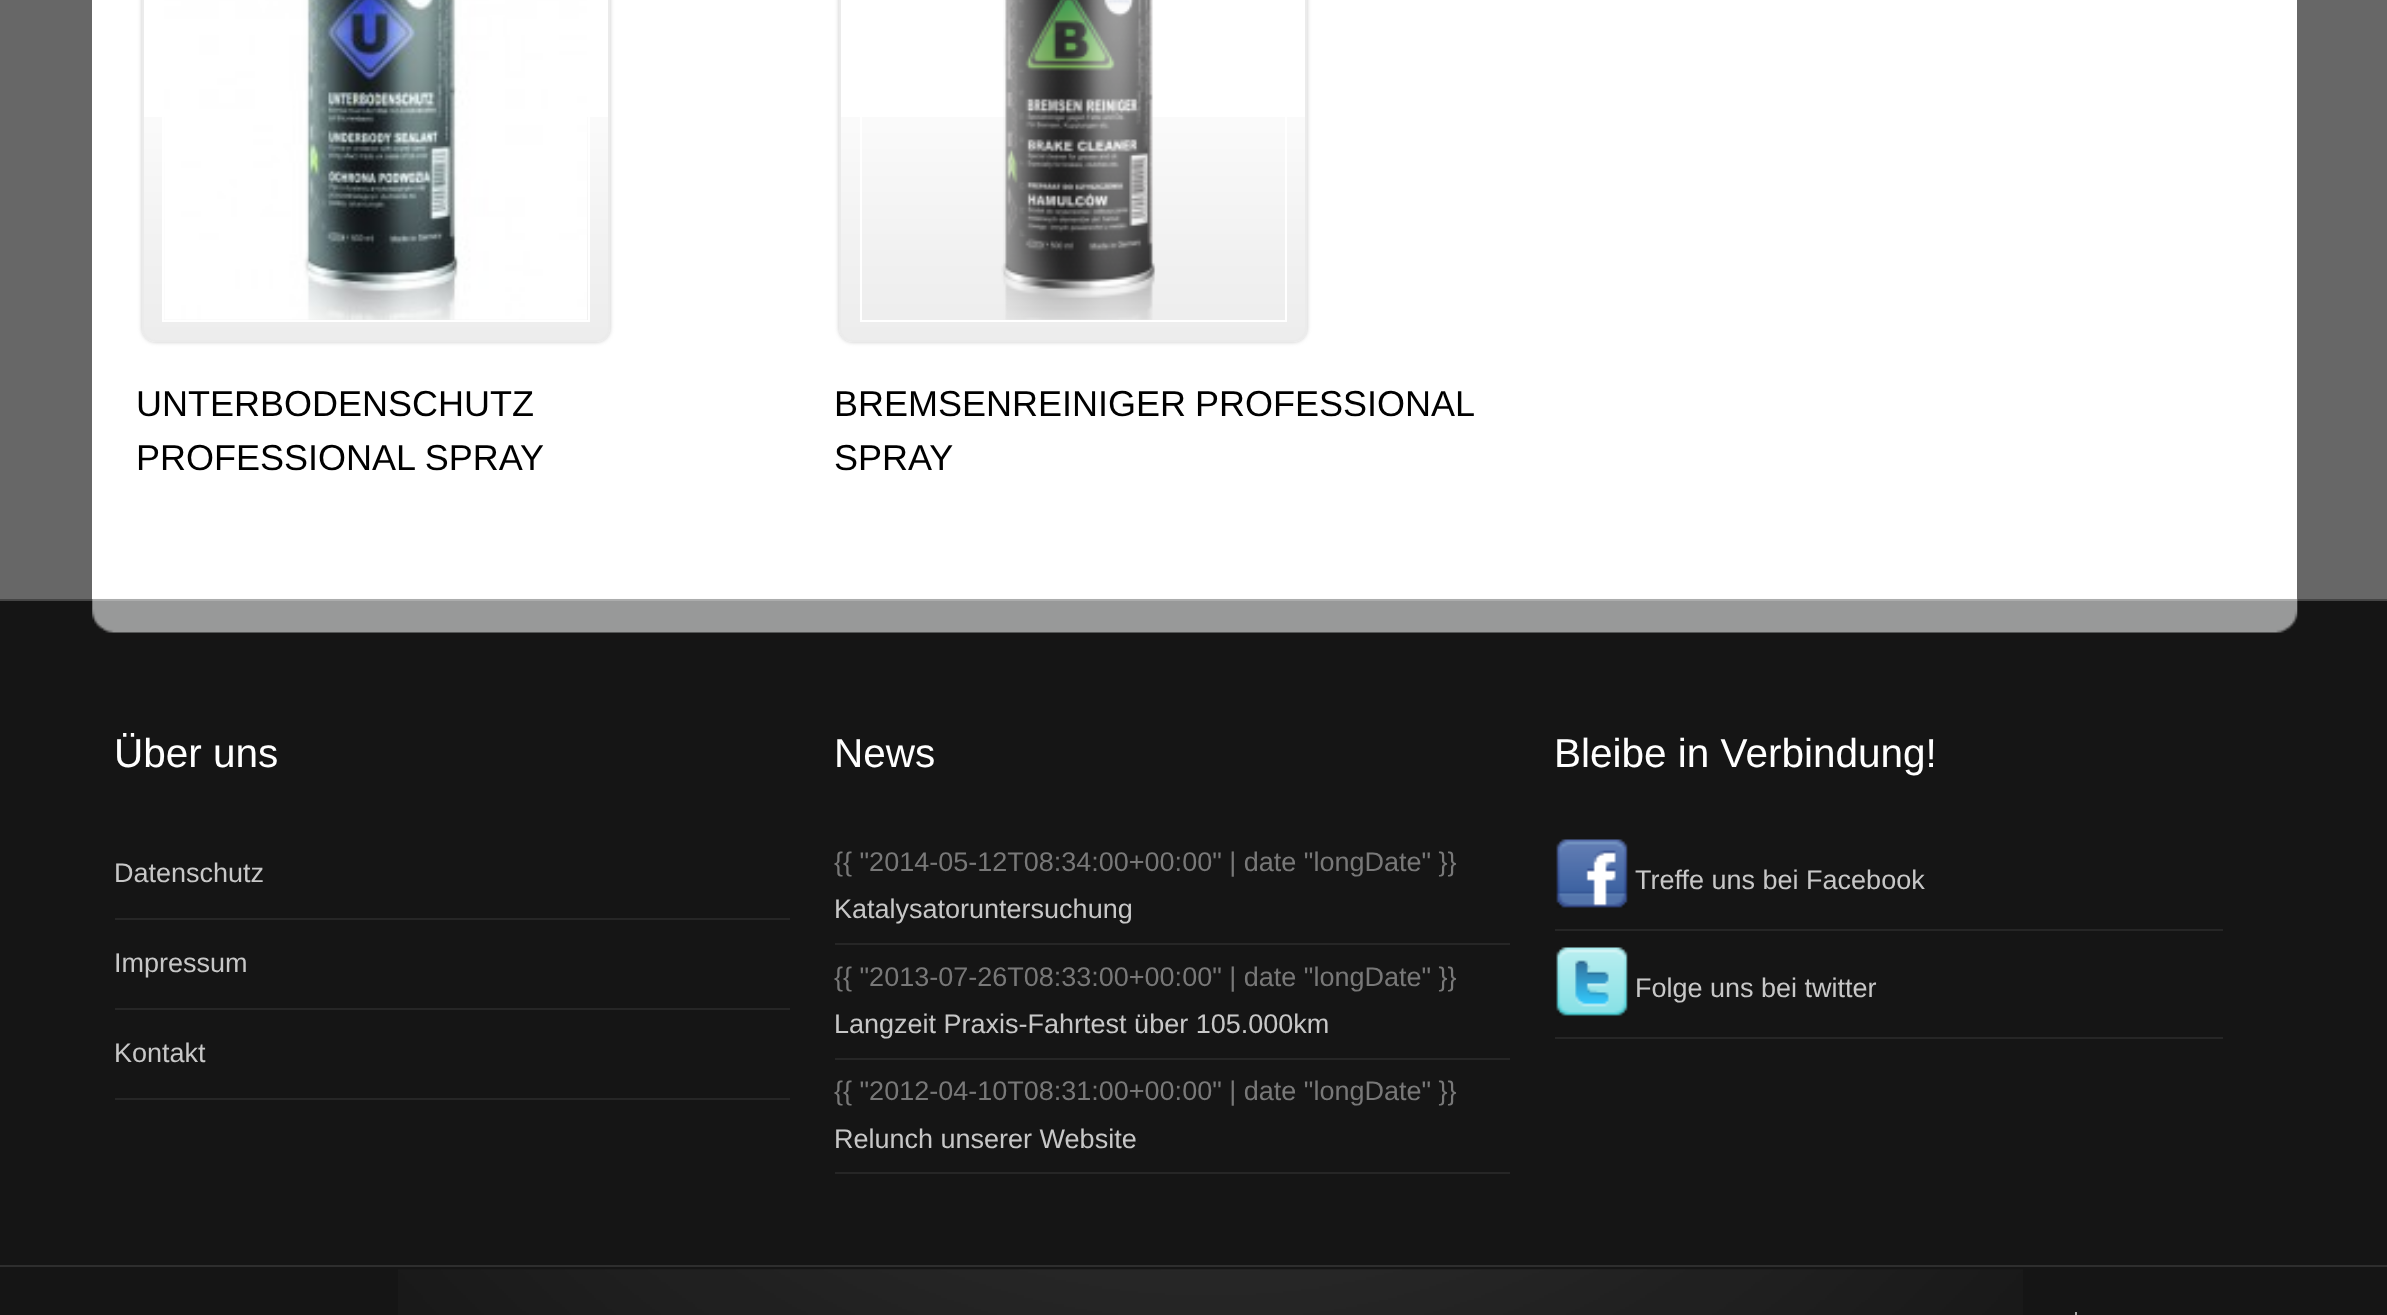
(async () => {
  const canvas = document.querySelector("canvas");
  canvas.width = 2387;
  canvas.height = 1315;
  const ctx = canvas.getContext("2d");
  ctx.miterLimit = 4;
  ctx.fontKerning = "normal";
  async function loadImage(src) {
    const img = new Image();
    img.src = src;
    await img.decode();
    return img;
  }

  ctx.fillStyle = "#676767";
  ctx.fillRect(0, 0, 2387, 1315);
  ctx.fillStyle = "#ffffff";
  ctx.fillRect(92, 0, 2205, 599);
  ctx.fillStyle = "#c7c7c7";
  ctx.filter = "blur(2px)";
  ctx.beginPath();
  ctx.roundRect(142, -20, 468, 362, 14);
  ctx.fill();
  ctx.filter = "none";
  ctx.fillStyle = "#ffffff";
  ctx.beginPath();
  ctx.roundRect(142, -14, 468, 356, 14);
  ctx.fill();
  ctx.drawImage(await loadImage("img/1.png"), 142, 117, 468, 223);
  ctx.beginPath();
  ctx.roundRect(143, -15, 466, 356, 13);
  ctx.strokeStyle = "#ebebeb";
  ctx.lineWidth = 2;
  ctx.stroke();
  ctx.strokeStyle = "#ffffff";
  ctx.strokeRect(163, -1, 426, 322);
  ctx.drawImage(await loadImage("img/2.png"), 164, 0, 424, 320);
  ctx.fillStyle = "#c7c7c7";
  ctx.filter = "blur(2px)";
  ctx.beginPath();
  ctx.roundRect(839, -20, 468, 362, 14);
  ctx.fill();
  ctx.filter = "none";
  ctx.fillStyle = "#ffffff";
  ctx.beginPath();
  ctx.roundRect(839, -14, 468, 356, 14);
  ctx.fill();
  ctx.drawImage(await loadImage("img/3.png"), 839, 117, 468, 223);
  ctx.beginPath();
  ctx.roundRect(840, -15, 466, 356, 13);
  ctx.strokeStyle = "#ebebeb";
  ctx.stroke();
  ctx.strokeStyle = "#ffffff";
  ctx.strokeRect(861, -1, 425, 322);
  ctx.drawImage(await loadImage("img/4.png"), 1001, 0, 155, 320);
  ctx.fillStyle = "#151515";
  ctx.fillRect(0, 601, 2387, 714);
  ctx.fillStyle = "#454545";
  ctx.fillRect(0, 599, 2387, 2);
  ctx.drawImage(await loadImage("img/5.png"), 92, 598, 2206, 35);
  for (const [x, y, w, h, color] of [
    [115, 918, 675, 2, "#262626"],
    [115, 1008, 675, 2, "#262626"],
    [115, 1098, 675, 2, "#262626"],
    [835, 943, 675, 2, "#262626"],
    [835, 1058, 675, 2, "#262626"],
    [835, 1172, 675, 2, "#262626"],
    [1555, 929, 668, 2, "#262626"],
  ]) {
    ctx.fillStyle = color;
    ctx.fillRect(x, y, w, h);
  }
  ctx.drawImage(await loadImage("img/6.png"), 1556, 839, 72, 69);
  ctx.fillRect(1555, 1037, 668, 2);
  ctx.drawImage(await loadImage("img/7.png"), 1556, 947, 72, 69);
  ctx.drawImage(await loadImage("img/8.png"), 398, 1269, 1625, 46);
  ctx.fillStyle = "#2e2e2e";
  ctx.fillRect(0, 1265, 2387, 2);
  ctx.fillStyle = "#a9a9a9";
  ctx.fillRect(2075, 1312, 2, 3);
  ctx.font = "36px Liberation Sans";
  ctx.fillStyle = "#000000";
  ctx.fillText("UNTERBODENSCHUTZ", 136, 416);
  ctx.fillText("PROFESSIONAL SPRAY", 136, 470);
  ctx.wordSpacing = "-1px";
  ctx.fillText("BREMSENREINIGER PROFESSIONAL", 834, 416);
  ctx.wordSpacing = "0px";
  ctx.fillText("SPRAY", 834, 470);
  ctx.font = "40.5px Liberation Sans";
  ctx.fillStyle = "#ffffff";
  ctx.fillText("Über uns", 114, 767);
  ctx.font = "27px Liberation Sans";
  ctx.fillStyle = "#c7c7c7";
  for (const [text, x, y] of [
    ["Datenschutz", 114, 882],
    ["Impressum", 114, 972],
    ["Kontakt", 114, 1062],
  ]) {
    ctx.fillText(text, x, y);
  }
  ctx.font = "40.5px Liberation Sans";
  ctx.fillStyle = "#ffffff";
  ctx.fillText("News", 834, 767);
  ctx.font = "27px Liberation Sans";
  ctx.fillStyle = "#787878";
  ctx.fillText("{{ \"2014-05-12T08:34:00+00:00\" | date \"longDate\" }}", 834, 871);
  ctx.fillStyle = "#c7c7c7";
  ctx.fillText("Katalysatoruntersuchung", 834, 918);
  ctx.fillStyle = "#787878";
  ctx.fillText("{{ \"2013-07-26T08:33:00+00:00\" | date \"longDate\" }}", 834, 986);
  ctx.fillStyle = "#c7c7c7";
  ctx.fillText("Langzeit Praxis-Fahrtest über 105.000km", 834, 1033);
  ctx.fillStyle = "#787878";
  ctx.fillText("{{ \"2012-04-10T08:31:00+00:00\" | date \"longDate\" }}", 834, 1100);
  ctx.fillStyle = "#c7c7c7";
  ctx.fillText("Relunch unserer Website", 834, 1148);
  ctx.font = "40.5px Liberation Sans";
  ctx.fillStyle = "#ffffff";
  ctx.fillText("Bleibe in Verbindung!", 1554, 767);
  ctx.font = "27px Liberation Sans";
  ctx.fillStyle = "#c7c7c7";
  ctx.fillText("Treffe uns bei Facebook", 1635, 889);
  ctx.fillText("Folge uns bei twitter", 1635, 997);
})();
